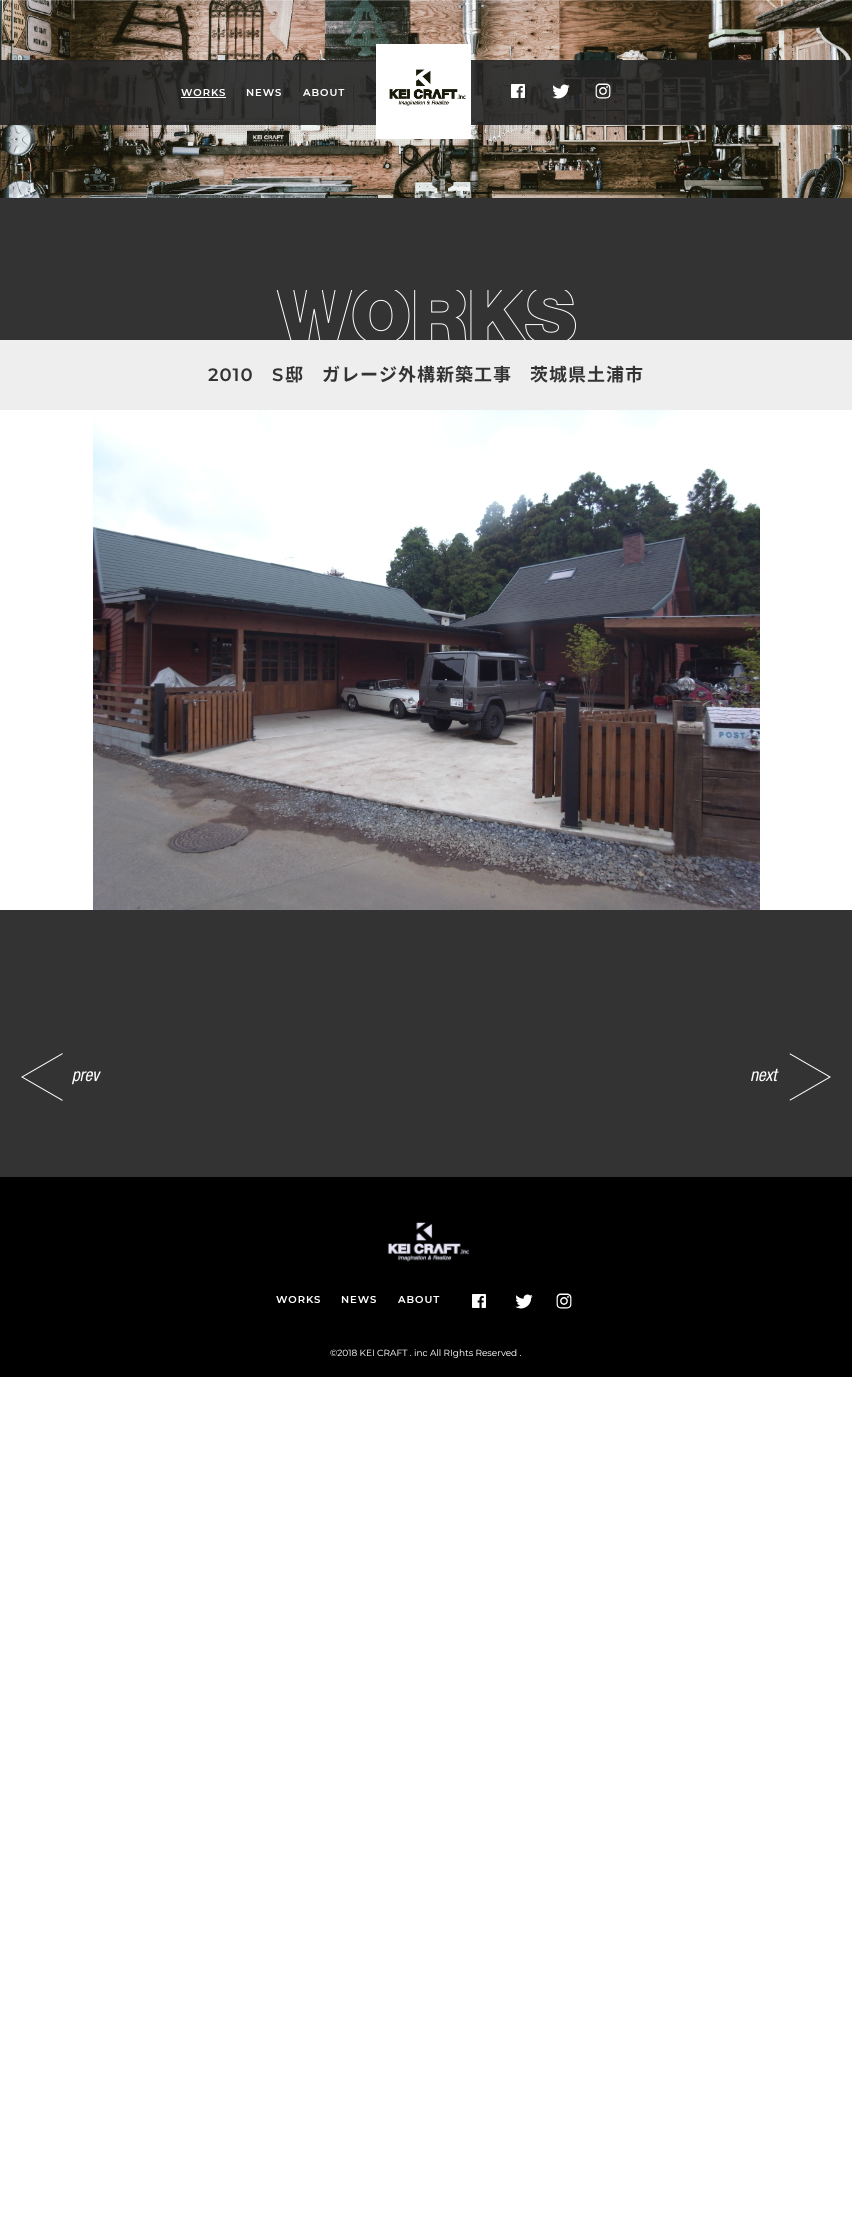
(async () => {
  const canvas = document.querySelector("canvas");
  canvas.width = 852;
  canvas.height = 2237;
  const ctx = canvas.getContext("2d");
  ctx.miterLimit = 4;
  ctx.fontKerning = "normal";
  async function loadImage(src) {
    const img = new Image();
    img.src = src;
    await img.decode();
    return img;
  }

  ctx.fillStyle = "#ffffff";
  ctx.fillRect(0, 0, 852, 2237);
  ctx.drawImage(await loadImage("img/1.png"), 0, 0, 852, 198);
  ctx.fillStyle = "rgba(34, 34, 34, 0.9)";
  ctx.fillRect(0, 60, 852, 65);
  ctx.fillStyle = "#ffffff";
  ctx.fillRect(181, 97, 45, 1);
  ctx.drawImage(await loadImage("img/2.png"), 376, 44, 95, 95);
  ctx.drawImage(await loadImage("img/3.png"), 511, 84, 14, 14);
  ctx.drawImage(await loadImage("img/4.png"), 552, 84, 18, 15);
  ctx.drawImage(await loadImage("img/5.png"), 595, 83, 16, 16);
  ctx.fillStyle = "#333333";
  ctx.fillRect(0, 198, 852, 142);
  ctx.drawImage(await loadImage("img/6.png"), 276, 290, 300, 50);
  ctx.fillStyle = "#eeeeee";
  ctx.fillRect(0, 340, 852, 70);
  ctx.drawImage(await loadImage("img/7.png"), 93, 410, 667, 500);
  ctx.fillStyle = "#333333";
  ctx.fillRect(0, 910, 852, 267);
  ctx.drawImage(await loadImage("img/8.png"), 21, 1053, 80, 48);
  ctx.drawImage(await loadImage("img/9.png"), 751, 1053, 80, 48);
  ctx.fillStyle = "#000000";
  ctx.fillRect(0, 1177, 852, 200);
  ctx.drawImage(await loadImage("img/10.png"), 387, 1222, 83, 40);
  ctx.drawImage(await loadImage("img/11.png"), 472, 1294, 14, 14);
  ctx.drawImage(await loadImage("img/12.png"), 515, 1294, 18, 15);
  ctx.drawImage(await loadImage("img/13.png"), 556, 1293, 16, 16);
  ctx.letterSpacing = "1px";
  ctx.font = "600 10px Montserrat";
  ctx.fillStyle = "#ffffff";
  for (const [text, x, y] of [
    ["WORKS", 181, 96],
    ["NEWS", 246, 96],
    ["ABOUT", 303, 96],
  ]) {
    ctx.fillText(text, x, y);
  }
  ctx.font = "600 18px Montserrat";
  ctx.fillStyle = "#333333";
  ctx.fillText("2010", 208, 381);
  ctx.fillText("S", 272, 381);
  ctx.font = "bold 18px Noto Sans CJK JP";
  for (const [text, x, y] of [
    ["邸", 285, 381],
    ["ガレージ外構新築工事", 322, 381],
    ["茨城県土浦市", 530, 381],
  ]) {
    ctx.fillText(text, x, y);
  }
  ctx.font = "600 10px Montserrat";
  ctx.fillStyle = "#ffffff";
  for (const [text, x, y] of [
    ["WORKS", 276, 1303],
    ["NEWS", 341, 1303],
    ["ABOUT", 398, 1303],
  ]) {
    ctx.fillText(text, x, y);
  }
  ctx.letterSpacing = "0px";
  ctx.font = "9px Montserrat";
  ctx.fillText("©2018 KEI CRAFT . inc All RIghts Reserved .", 330, 1356);
})();
